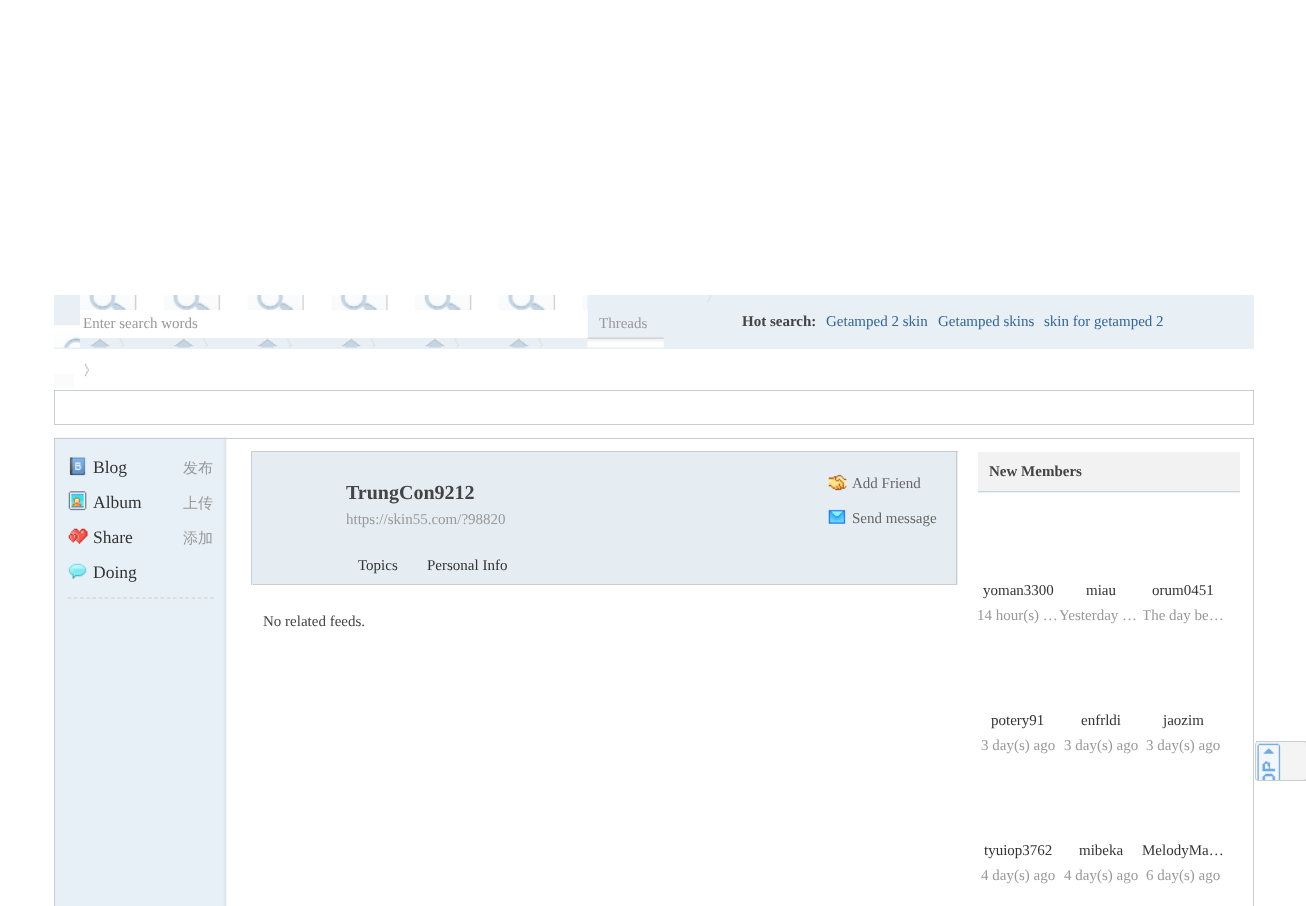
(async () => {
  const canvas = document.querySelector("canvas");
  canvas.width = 1306;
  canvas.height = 906;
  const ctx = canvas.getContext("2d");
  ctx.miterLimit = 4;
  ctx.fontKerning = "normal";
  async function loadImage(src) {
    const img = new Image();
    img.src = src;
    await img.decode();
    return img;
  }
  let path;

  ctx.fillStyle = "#ffffff";
  ctx.fillRect(0, 0, 1306, 906);
  ctx.fillStyle = "#e8eff5";
  ctx.fillRect(54, 295, 1200, 54);
  ctx.drawImage(await loadImage("img/1.png"), 707, 295, 5, 8);
  ctx.drawImage(await loadImage("img/2.png"), 80, 295, 508, 53);
  ctx.drawImage(await loadImage("img/3.png"), 587, 337, 77, 11);
  ctx.fillStyle = "#ffffff";
  ctx.fillRect(80, 310, 508, 28);
  ctx.drawImage(await loadImage("img/4.png"), 54, 325, 26, 23);
  ctx.drawImage(await loadImage("img/5.png"), 85, 363, 4, 14);
  for (const [x, y, w, h, color] of [
    [54, 374, 20, 14, "#f9fbfc"],
    [54, 390, 1200, 1, "#cdcdcd"],
    [1253, 390, 1, 35, "#cdcdcd"],
    [54, 424, 1200, 1, "#cdcdcd"],
    [54, 390, 1, 35, "#cdcdcd"],
  ]) {
    ctx.fillStyle = color;
    ctx.fillRect(x, y, w, h);
  }
  ctx.drawImage(await loadImage("img/6.png"), 55, 437, 172, 469);
  ctx.strokeStyle = "#cccccc";
  ctx.strokeRect(54.5, 438.5, 1199, 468);
  ctx.drawImage(await loadImage("img/7.png"), 69, 457, 17, 19);
  ctx.drawImage(await loadImage("img/8.png"), 68, 491, 19, 20);
  ctx.drawImage(await loadImage("img/9.png"), 68, 528, 20, 16);
  ctx.drawImage(await loadImage("img/10.png"), 68, 563, 19, 16);
  path = new Path2D("M67.5 598H214");
  ctx.strokeStyle = "#cdcdcd";
  ctx.lineWidth = 1.2;
  ctx.setLineDash([3.75, 2.45]);
  ctx.stroke(path);
  for (const [x, y, w, h, color] of [
    [252, 452, 706, 133, "#e5edf2"],
    [251, 451, 707, 1, "#cccccc"],
    [956, 451, 1, 134, "#cccccc"],
    [251, 451, 1, 134, "#cccccc"],
  ]) {
    ctx.fillStyle = color;
    ctx.fillRect(x, y, w, h);
  }
  ctx.drawImage(await loadImage("img/11.png"), 828, 474, 19, 17);
  ctx.drawImage(await loadImage("img/12.png"), 828, 509, 18, 15);
  for (const [x, y, w, h, color] of [
    [253, 584, 703, 1, "#cdcdcd"],
    [978, 452, 262, 41, "#f2f2f2"],
    [978, 491, 262, 1, "#c2d5e3"],
  ]) {
    ctx.fillStyle = color;
    ctx.fillRect(x, y, w, h);
  }
  ctx.fillStyle = "#f4f4f4";
  ctx.beginPath();
  ctx.roundRect(1255, 741, 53, 40, 4);
  ctx.fill();
  ctx.fillStyle = "#cdcdcd";
  path = new Path2D("M1259 741H1304C1306 741 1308 743 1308 745V778C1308 780 1306 781 1304 781H1259C1257 781 1255 780 1255 778V745C1255 743 1257 741 1259 741ZM1259 741H1304C1305 741 1306 743 1306 745V778C1306 779 1305 780 1304 780H1259C1257 780 1256 779 1256 778V745C1256 743 1257 741 1259 741Z");
  ctx.fill(path, "evenodd");
  ctx.drawImage(await loadImage("img/13.png"), 1257, 743, 24, 37);
  ctx.fillRect(1256, 741, 50, 1);
  ctx.font = "15px Liberation Serif";
  ctx.fillStyle = "#999999";
  ctx.fillText("Enter search words", 83, 328);
  ctx.fillText("Threads", 599, 328);
  ctx.font = "bold 15px Liberation Serif";
  ctx.fillStyle = "#444444";
  ctx.fillText("Hot search:", 742, 326);
  ctx.font = "15px Liberation Serif";
  ctx.fillStyle = "#336699";
  for (const [text, x, y] of [
    ["Getamped 2 skin", 826, 326],
    ["Getamped skins", 938, 326],
    ["skin for getamped 2", 1044, 326],
  ]) {
    ctx.fillText(text, x, y);
  }
  ctx.font = "17.5px Liberation Serif";
  ctx.fillStyle = "#333333";
  ctx.fillText("Blog", 93, 473);
  ctx.font = "500 15px WenQuanYi Zen Hei";
  ctx.fillStyle = "#999999";
  ctx.fillText("发布", 183, 473);
  ctx.font = "17.5px Liberation Serif";
  ctx.fillStyle = "#333333";
  ctx.fillText("Album", 93, 508);
  ctx.font = "500 15px WenQuanYi Zen Hei";
  ctx.fillStyle = "#999999";
  ctx.fillText("上传", 183, 508);
  ctx.font = "17.5px Liberation Serif";
  ctx.fillStyle = "#333333";
  ctx.fillText("Share", 93, 543);
  ctx.font = "500 15px WenQuanYi Zen Hei";
  ctx.fillStyle = "#999999";
  ctx.fillText("添加", 183, 543);
  ctx.font = "17.5px Liberation Serif";
  ctx.fillStyle = "#333333";
  ctx.fillText("Doing", 93, 578);
  ctx.font = "bold 20px Liberation Serif";
  ctx.fillStyle = "#444444";
  ctx.fillText("TrungCon9212", 346, 499);
  ctx.font = "15px Liberation Serif";
  ctx.fillStyle = "#999999";
  ctx.fillText("https://skin55.com/?98820", 346, 524);
  ctx.fillStyle = "#666666";
  ctx.fillText("Add Friend", 852, 488);
  ctx.fillText("Send message", 852, 523);
  ctx.fillStyle = "#333333";
  ctx.fillText("Topics", 358, 570);
  ctx.fillText("Personal Info", 427, 570);
  ctx.fillStyle = "#444444";
  ctx.fillText("No related feeds.", 263, 626);
  ctx.font = "bold 15px Liberation Serif";
  ctx.fillText("New Members", 989, 476);
  ctx.font = "15px Liberation Serif";
  ctx.fillStyle = "#333333";
  ctx.fillText("yoman3300", 983, 595);
  ctx.fillStyle = "#999999";
  ctx.fillText("14 hour(s) …", 977, 620);
  ctx.fillStyle = "#333333";
  ctx.fillText("miau", 1086, 595);
  ctx.fillStyle = "#999999";
  ctx.fillText("Yesterday …", 1059, 620);
  ctx.fillStyle = "#333333";
  ctx.fillText("orum0451", 1152, 595);
  ctx.save();
  ctx.beginPath();
  ctx.rect(1143, 604, 82, 25);
  ctx.clip();
  ctx.fillStyle = "#999999";
  ctx.fillText("The day be…", 1142, 620);
  ctx.restore();
  ctx.fillText("potery91", 991, 725);
  ctx.fillStyle = "#999999";
  ctx.fillText("3 day(s) ago", 981, 750);
  ctx.fillStyle = "#333333";
  ctx.fillText("enfrldi", 1081, 725);
  ctx.fillStyle = "#999999";
  ctx.fillText("3 day(s) ago", 1064, 750);
  ctx.fillStyle = "#333333";
  ctx.fillText("jaozim", 1163, 725);
  ctx.fillStyle = "#999999";
  ctx.fillText("3 day(s) ago", 1146, 750);
  ctx.fillStyle = "#333333";
  ctx.fillText("tyuiop3762", 984, 855);
  ctx.fillStyle = "#999999";
  ctx.fillText("4 day(s) ago", 981, 880);
  ctx.fillStyle = "#333333";
  ctx.fillText("mibeka", 1079, 855);
  ctx.fillStyle = "#999999";
  ctx.fillText("4 day(s) ago", 1064, 880);
  ctx.fillStyle = "#333333";
  ctx.fillText("MelodyMa…", 1142, 855);
  ctx.fillStyle = "#999999";
  ctx.fillText("6 day(s) ago", 1146, 880);
})();
